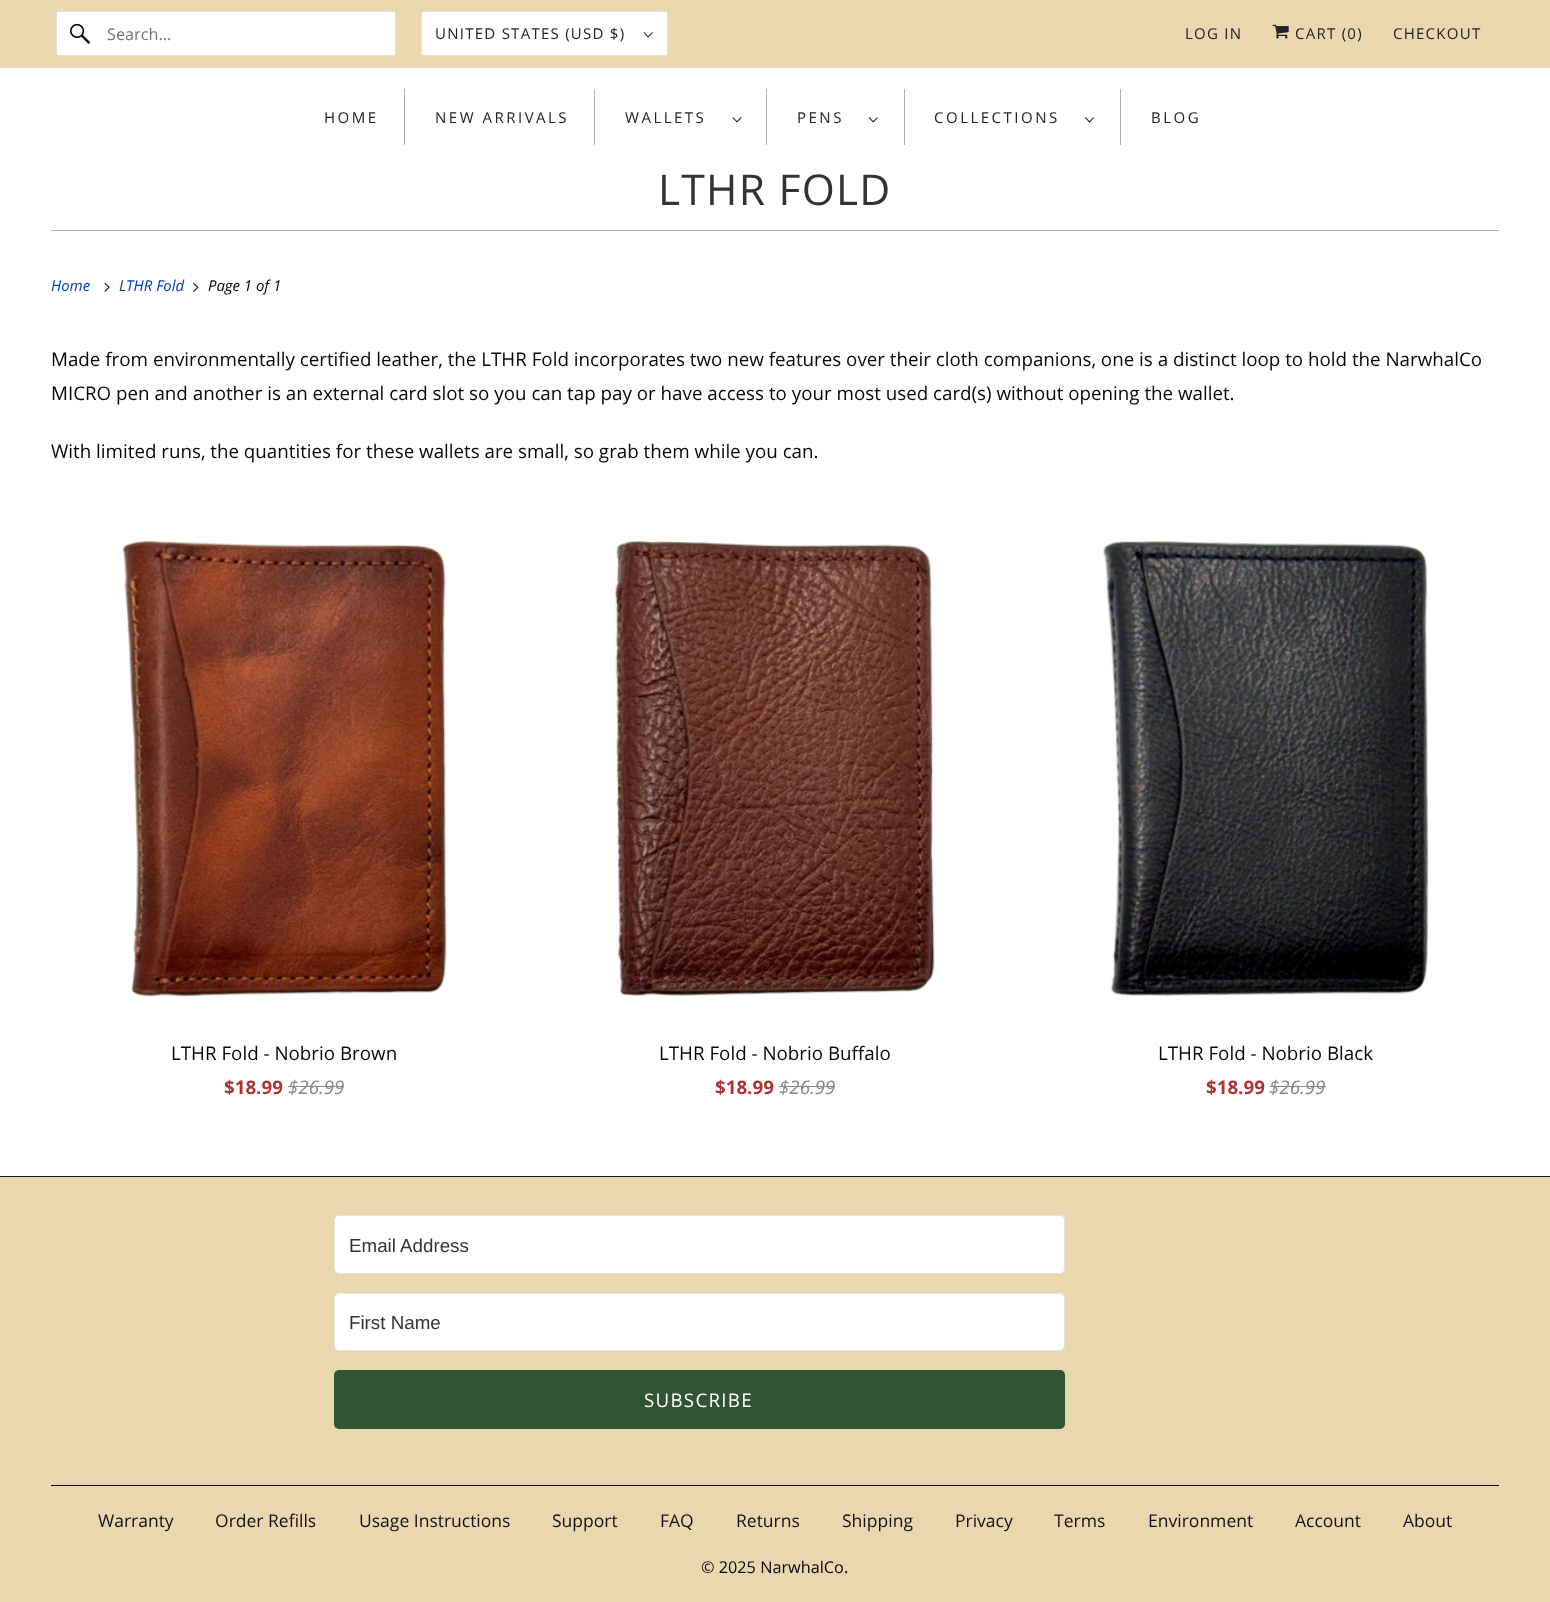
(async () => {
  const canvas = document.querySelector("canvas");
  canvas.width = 1550;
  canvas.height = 1602;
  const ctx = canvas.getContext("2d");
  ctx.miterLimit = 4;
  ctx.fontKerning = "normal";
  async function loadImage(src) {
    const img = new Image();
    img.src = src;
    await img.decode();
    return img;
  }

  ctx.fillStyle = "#ffffff";
  ctx.fillRect(0, 0, 1550, 1602);
  ctx.fillStyle = "#e9d7b0";
  ctx.fillRect(0, 0, 1550, 68);
  ctx.fillStyle = "#ffffff";
  ctx.beginPath();
  ctx.roundRect(56.5, 11.5, 339, 44, 2);
  ctx.fill();
  ctx.strokeStyle = "#dfdfdf";
  ctx.stroke();
  ctx.drawImage(await loadImage("img/1.png"), 70, 23, 20, 21);
  ctx.beginPath();
  ctx.roundRect(421.5, 11.5, 246, 44, 2);
  ctx.fill();
  ctx.stroke();
  ctx.drawImage(await loadImage("img/2.png"), 643, 32, 10, 6);
  ctx.drawImage(await loadImage("img/3.png"), 1272, 24, 17, 15);
  for (const [x, y, w, h, color] of [
    [404, 89, 1, 56, "#aeaeb0"],
    [594, 89, 1, 56, "#aeaeb0"],
    [766, 89, 1, 56, "#aeaeb0"],
  ]) {
    ctx.fillStyle = color;
    ctx.fillRect(x, y, w, h);
  }
  ctx.drawImage(await loadImage("img/4.png"), 732, 117, 10, 6);
  ctx.fillRect(904, 89, 1, 56);
  ctx.drawImage(await loadImage("img/2.png"), 868, 117, 10, 6);
  ctx.fillRect(1120, 89, 1, 56);
  ctx.drawImage(await loadImage("img/5.png"), 1085, 117, 9, 6);
  ctx.fillRect(51, 230, 1448, 1);
  ctx.drawImage(await loadImage("img/6.png"), 104, 282, 6, 10);
  ctx.drawImage(await loadImage("img/7.png"), 193, 282, 6, 10);
  ctx.drawImage(await loadImage("img/8.png"), 122, 541, 325, 456);
  ctx.fillStyle = "#888888";
  ctx.fillRect(288, 1086, 56, 1);
  ctx.drawImage(await loadImage("img/9.png"), 614, 541, 321, 455);
  ctx.fillRect(779, 1086, 56, 1);
  ctx.drawImage(await loadImage("img/10.png"), 1103, 541, 326, 455);
  for (const [x, y, w, h, color] of [
    [1270, 1086, 56, 1, "#888888"],
    [0, 1177, 1550, 425, "#e9d7b0"],
    [0, 1176, 1550, 1, "#161616"],
  ]) {
    ctx.fillStyle = color;
    ctx.fillRect(x, y, w, h);
  }
  ctx.fillStyle = "#ffffff";
  ctx.beginPath();
  ctx.roundRect(334.5, 1215.5, 730, 58, 4.5);
  ctx.fill();
  ctx.strokeStyle = "#e3e3e3";
  ctx.stroke();
  ctx.beginPath();
  ctx.roundRect(334.5, 1293.5, 730, 57, 4.5);
  ctx.fill();
  ctx.stroke();
  ctx.fillStyle = "#315532";
  ctx.beginPath();
  ctx.roundRect(334, 1370, 731, 59, 5);
  ctx.fill();
  ctx.fillStyle = "#090808";
  ctx.fillRect(51, 1485, 1448, 1);
  ctx.font = "16.25px Open Sans";
  ctx.fillStyle = "#757575";
  ctx.fillText("Search...", 107, 40);
  ctx.letterSpacing = "1.25px";
  ctx.font = "15px Open Sans";
  ctx.fillStyle = "#222222";
  for (const [text, x, y] of [
    ["UNITED STATES (USD $)", 435, 39],
    ["LOG IN", 1185, 39],
    ["CART (0)", 1295, 39],
    ["CHECKOUT", 1393, 39],
  ]) {
    ctx.fillText(text, x, y);
  }
  ctx.letterSpacing = "2.5px";
  for (const [text, x, y] of [
    ["HOME", 324, 123],
    ["NEW ARRIVALS", 435, 123],
    ["WALLETS", 625, 123],
    ["PENS", 797, 123],
    ["COLLECTIONS", 934, 123],
    ["BLOG", 1151, 123],
  ]) {
    ctx.fillText(text, x, y);
  }
  ctx.letterSpacing = "1.25px";
  ctx.font = "42.5px Open Sans";
  ctx.fillStyle = "#333333";
  ctx.fillText("LTHR FOLD", 658, 205);
  ctx.letterSpacing = "0px";
  ctx.font = "italic 15px Open Sans";
  ctx.fillStyle = "#003fb2";
  ctx.fillText("Home", 51, 291);
  ctx.fillText("LTHR Fold", 119, 291);
  ctx.fillStyle = "#080707";
  ctx.fillText("Page 1 of 1", 208, 291);
  ctx.font = "18.75px Open Sans";
  for (const [text, x, y] of [
    ["Made from environmentally certified leather, the LTHR Fold incorporates two new features over their cloth companions, one is a distinct loop to hold the NarwhalCo", 51, 366],
    ["MICRO pen and another is an external card slot so you can tap pay or have access to your most used card(s) without opening the wallet.", 51, 400],
    ["With limited runs, the quantities for these wallets are small, so grab them while you can.", 51, 458],
    ["LTHR Fold - Nobrio Brown", 171, 1060],
  ]) {
    ctx.fillText(text, x, y);
  }
  ctx.font = "bold 18.75px Open Sans";
  ctx.fillStyle = "#ae3333";
  ctx.fillText("$18.99", 224, 1094);
  ctx.font = "italic 18.75px Open Sans";
  ctx.fillStyle = "#888888";
  ctx.fillText("$26.99", 288, 1094);
  ctx.font = "18.75px Open Sans";
  ctx.fillStyle = "#080707";
  ctx.fillText("LTHR Fold - Nobrio Buffalo", 659, 1060);
  ctx.font = "bold 18.75px Open Sans";
  ctx.fillStyle = "#ae3333";
  ctx.fillText("$18.99", 715, 1094);
  ctx.font = "italic 18.75px Open Sans";
  ctx.fillStyle = "#888888";
  ctx.fillText("$26.99", 779, 1094);
  ctx.font = "18.75px Open Sans";
  ctx.fillStyle = "#080707";
  ctx.fillText("LTHR Fold - Nobrio Black", 1158, 1060);
  ctx.font = "bold 18.75px Open Sans";
  ctx.fillStyle = "#ae3333";
  ctx.fillText("$18.99", 1206, 1094);
  ctx.font = "italic 18.75px Open Sans";
  ctx.fillStyle = "#888888";
  ctx.fillText("$26.99", 1269, 1094);
  ctx.font = "18.75px Liberation Sans";
  ctx.fillStyle = "#333333";
  ctx.fillText("Email Address", 349, 1252);
  ctx.fillText("First Name", 349, 1329);
  ctx.letterSpacing = "1.25px";
  ctx.font = "18.75px Open Sans";
  ctx.fillStyle = "#ffffff";
  ctx.fillText("SUBSCRIBE", 644, 1407);
  ctx.letterSpacing = "0px";
  ctx.font = "17.5px Open Sans";
  ctx.fillStyle = "#131111";
  for (const [text, x, y] of [
    ["Warranty", 98, 1527],
    ["Order Refills", 215, 1527],
    ["Usage Instructions", 359, 1527],
    ["Support", 552, 1527],
    ["FAQ", 660, 1527],
    ["Returns", 736, 1527],
    ["Shipping", 842, 1527],
    ["Privacy", 955, 1527],
    ["Terms", 1054, 1527],
    ["Environment", 1148, 1527],
    ["Account", 1295, 1527],
    ["About", 1403, 1527],
  ]) {
    ctx.fillText(text, x, y);
  }
  ctx.font = "16.25px Open Sans";
  ctx.fillStyle = "#080707";
  ctx.fillText("© 2025 NarwhalCo.", 701, 1573);
})();
